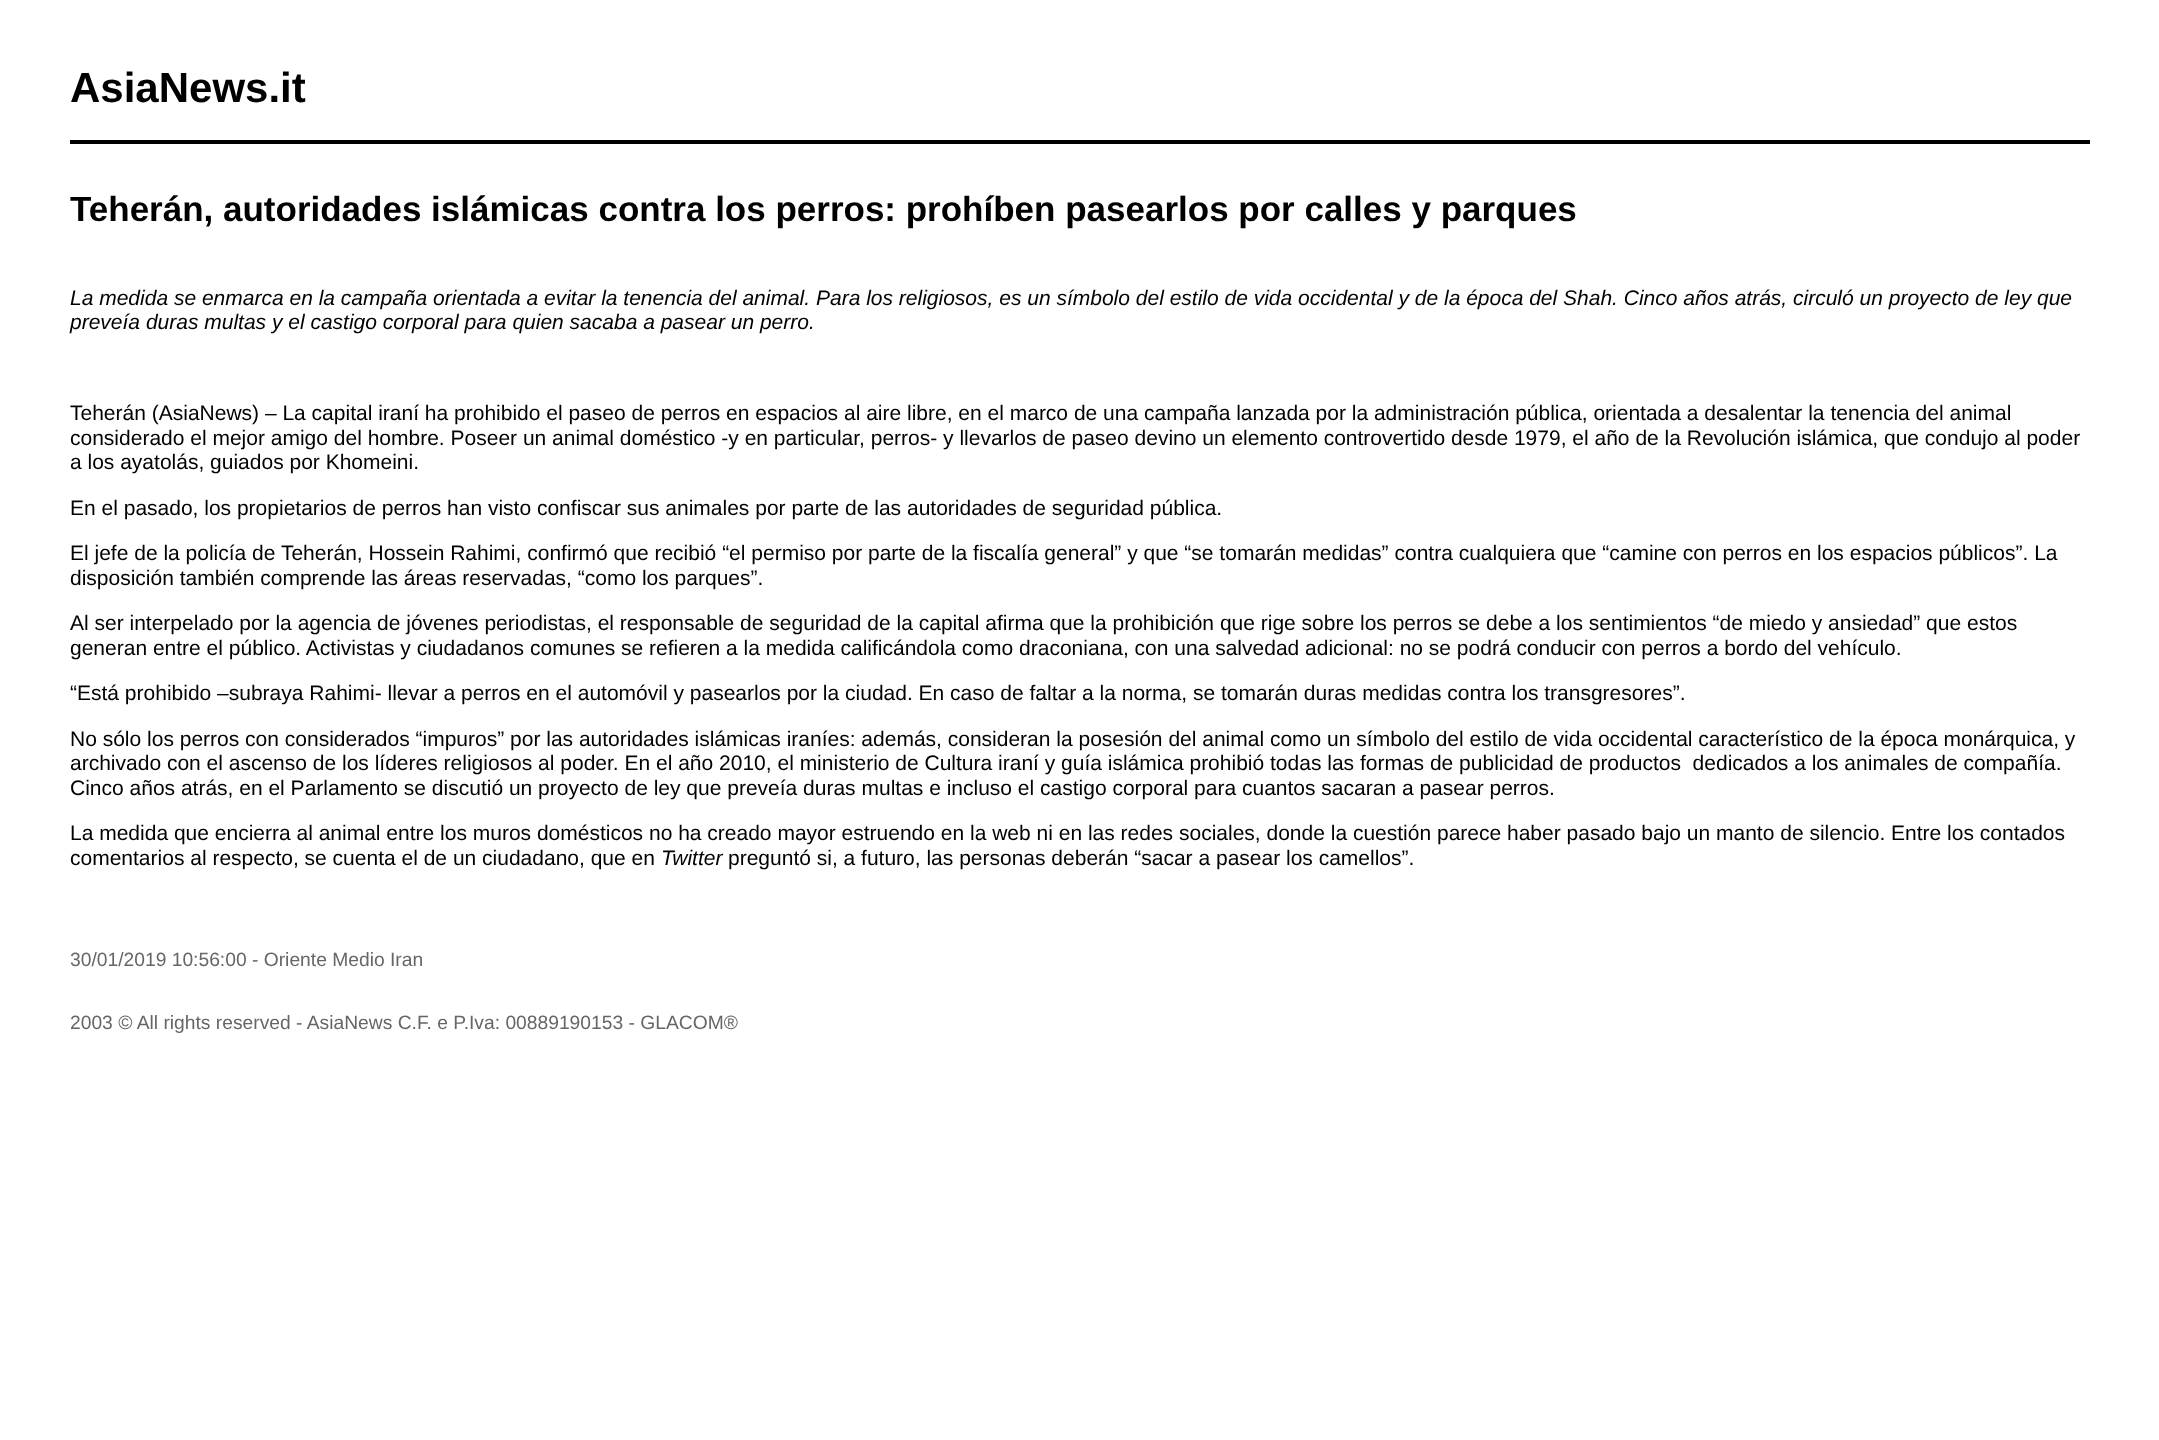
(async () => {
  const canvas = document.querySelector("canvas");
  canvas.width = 2159;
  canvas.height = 1440;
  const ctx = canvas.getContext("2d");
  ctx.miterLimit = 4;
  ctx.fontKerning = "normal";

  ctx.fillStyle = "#ffffff";
  ctx.fillRect(0, 0, 2159, 1440);
  ctx.fillStyle = "#000000";
  ctx.fillRect(70, 140, 2020, 4);
  ctx.font = "bold 42px Liberation Sans";
  ctx.fillText("AsiaNews.it", 70, 102);
  ctx.font = "bold 35px Liberation Sans";
  ctx.fillText("Teherán, autoridades islámicas contra los perros: prohíben pasearlos por calles y parques", 70, 221);
  ctx.font = "italic 21px Liberation Sans";
  ctx.fillText("La medida se enmarca en la campaña orientada a evitar la tenencia del animal. Para los religiosos, es un símbolo del estilo de vida occidental y de la época del Shah. Cinco años atrás, circuló un proyecto de ley que", 70, 305);
  ctx.fillText("preveía duras multas y el castigo corporal para quien sacaba a pasear un perro.", 70, 329);
  ctx.font = "21px Liberation Sans";
  for (const [text, x, y] of [
    ["Teherán (AsiaNews) – La capital iraní ha prohibido el paseo de perros en espacios al aire libre, en el marco de una campaña lanzada por la administración pública, orientada a desalentar la tenencia del animal", 70, 420],
    ["considerado el mejor amigo del hombre. Poseer un animal doméstico -y en particular, perros- y llevarlos de paseo devino un elemento controvertido desde 1979, el año de la Revolución islámica, que condujo al poder", 70, 445],
    ["a los ayatolás, guiados por Khomeini.", 70, 469],
    ["En el pasado, los propietarios de perros han visto confiscar sus animales por parte de las autoridades de seguridad pública.", 70, 515],
    ["El jefe de la policía de Teherán, Hossein Rahimi, confirmó que recibió “el permiso por parte de la fiscalía general” y que “se tomarán medidas” contra cualquiera que “camine con perros en los espacios públicos”. La", 70, 560],
    ["disposición también comprende las áreas reservadas, “como los parques”.", 70, 585],
    ["Al ser interpelado por la agencia de jóvenes periodistas, el responsable de seguridad de la capital afirma que la prohibición que rige sobre los perros se debe a los sentimientos “de miedo y ansiedad” que estos", 70, 630],
    ["generan entre el público. Activistas y ciudadanos comunes se refieren a la medida calificándola como draconiana, con una salvedad adicional: no se podrá conducir con perros a bordo del vehículo.", 70, 655],
    ["“Está prohibido –subraya Rahimi- llevar a perros en el automóvil y pasearlos por la ciudad. En caso de faltar a la norma, se tomarán duras medidas contra los transgresores”.", 70, 700],
    ["No sólo los perros con considerados “impuros” por las autoridades islámicas iraníes: además, consideran la posesión del animal como un símbolo del estilo de vida occidental característico de la época monárquica, y", 70, 746],
    ["archivado con el ascenso de los líderes religiosos al poder. En el año 2010, el ministerio de Cultura iraní y guía islámica prohibió todas las formas de publicidad de productos  dedicados a los animales de compañía.", 70, 770],
    ["Cinco años atrás, en el Parlamento se discutió un proyecto de ley que preveía duras multas e incluso el castigo corporal para cuantos sacaran a pasear perros.", 70, 795],
    ["La medida que encierra al animal entre los muros domésticos no ha creado mayor estruendo en la web ni en las redes sociales, donde la cuestión parece haber pasado bajo un manto de silencio. Entre los contados", 70, 840],
    ["comentarios al respecto, se cuenta el de un ciudadano, que en", 70, 865],
  ]) {
    ctx.fillText(text, x, y);
  }
  ctx.font = "italic 21px Liberation Sans";
  ctx.fillText("Twitter", 661, 865);
  ctx.font = "21px Liberation Sans";
  ctx.fillText("preguntó si, a futuro, las personas deberán “sacar a pasear los camellos”.", 728, 865);
  ctx.font = "19.25px Liberation Sans";
  ctx.fillStyle = "#666666";
  ctx.fillText("30/01/2019 10:56:00 - Oriente Medio Iran", 70, 966);
  ctx.fillText("2003 © All rights reserved - AsiaNews C.F. e P.Iva: 00889190153 - GLACOM®", 70, 1029);
})();
